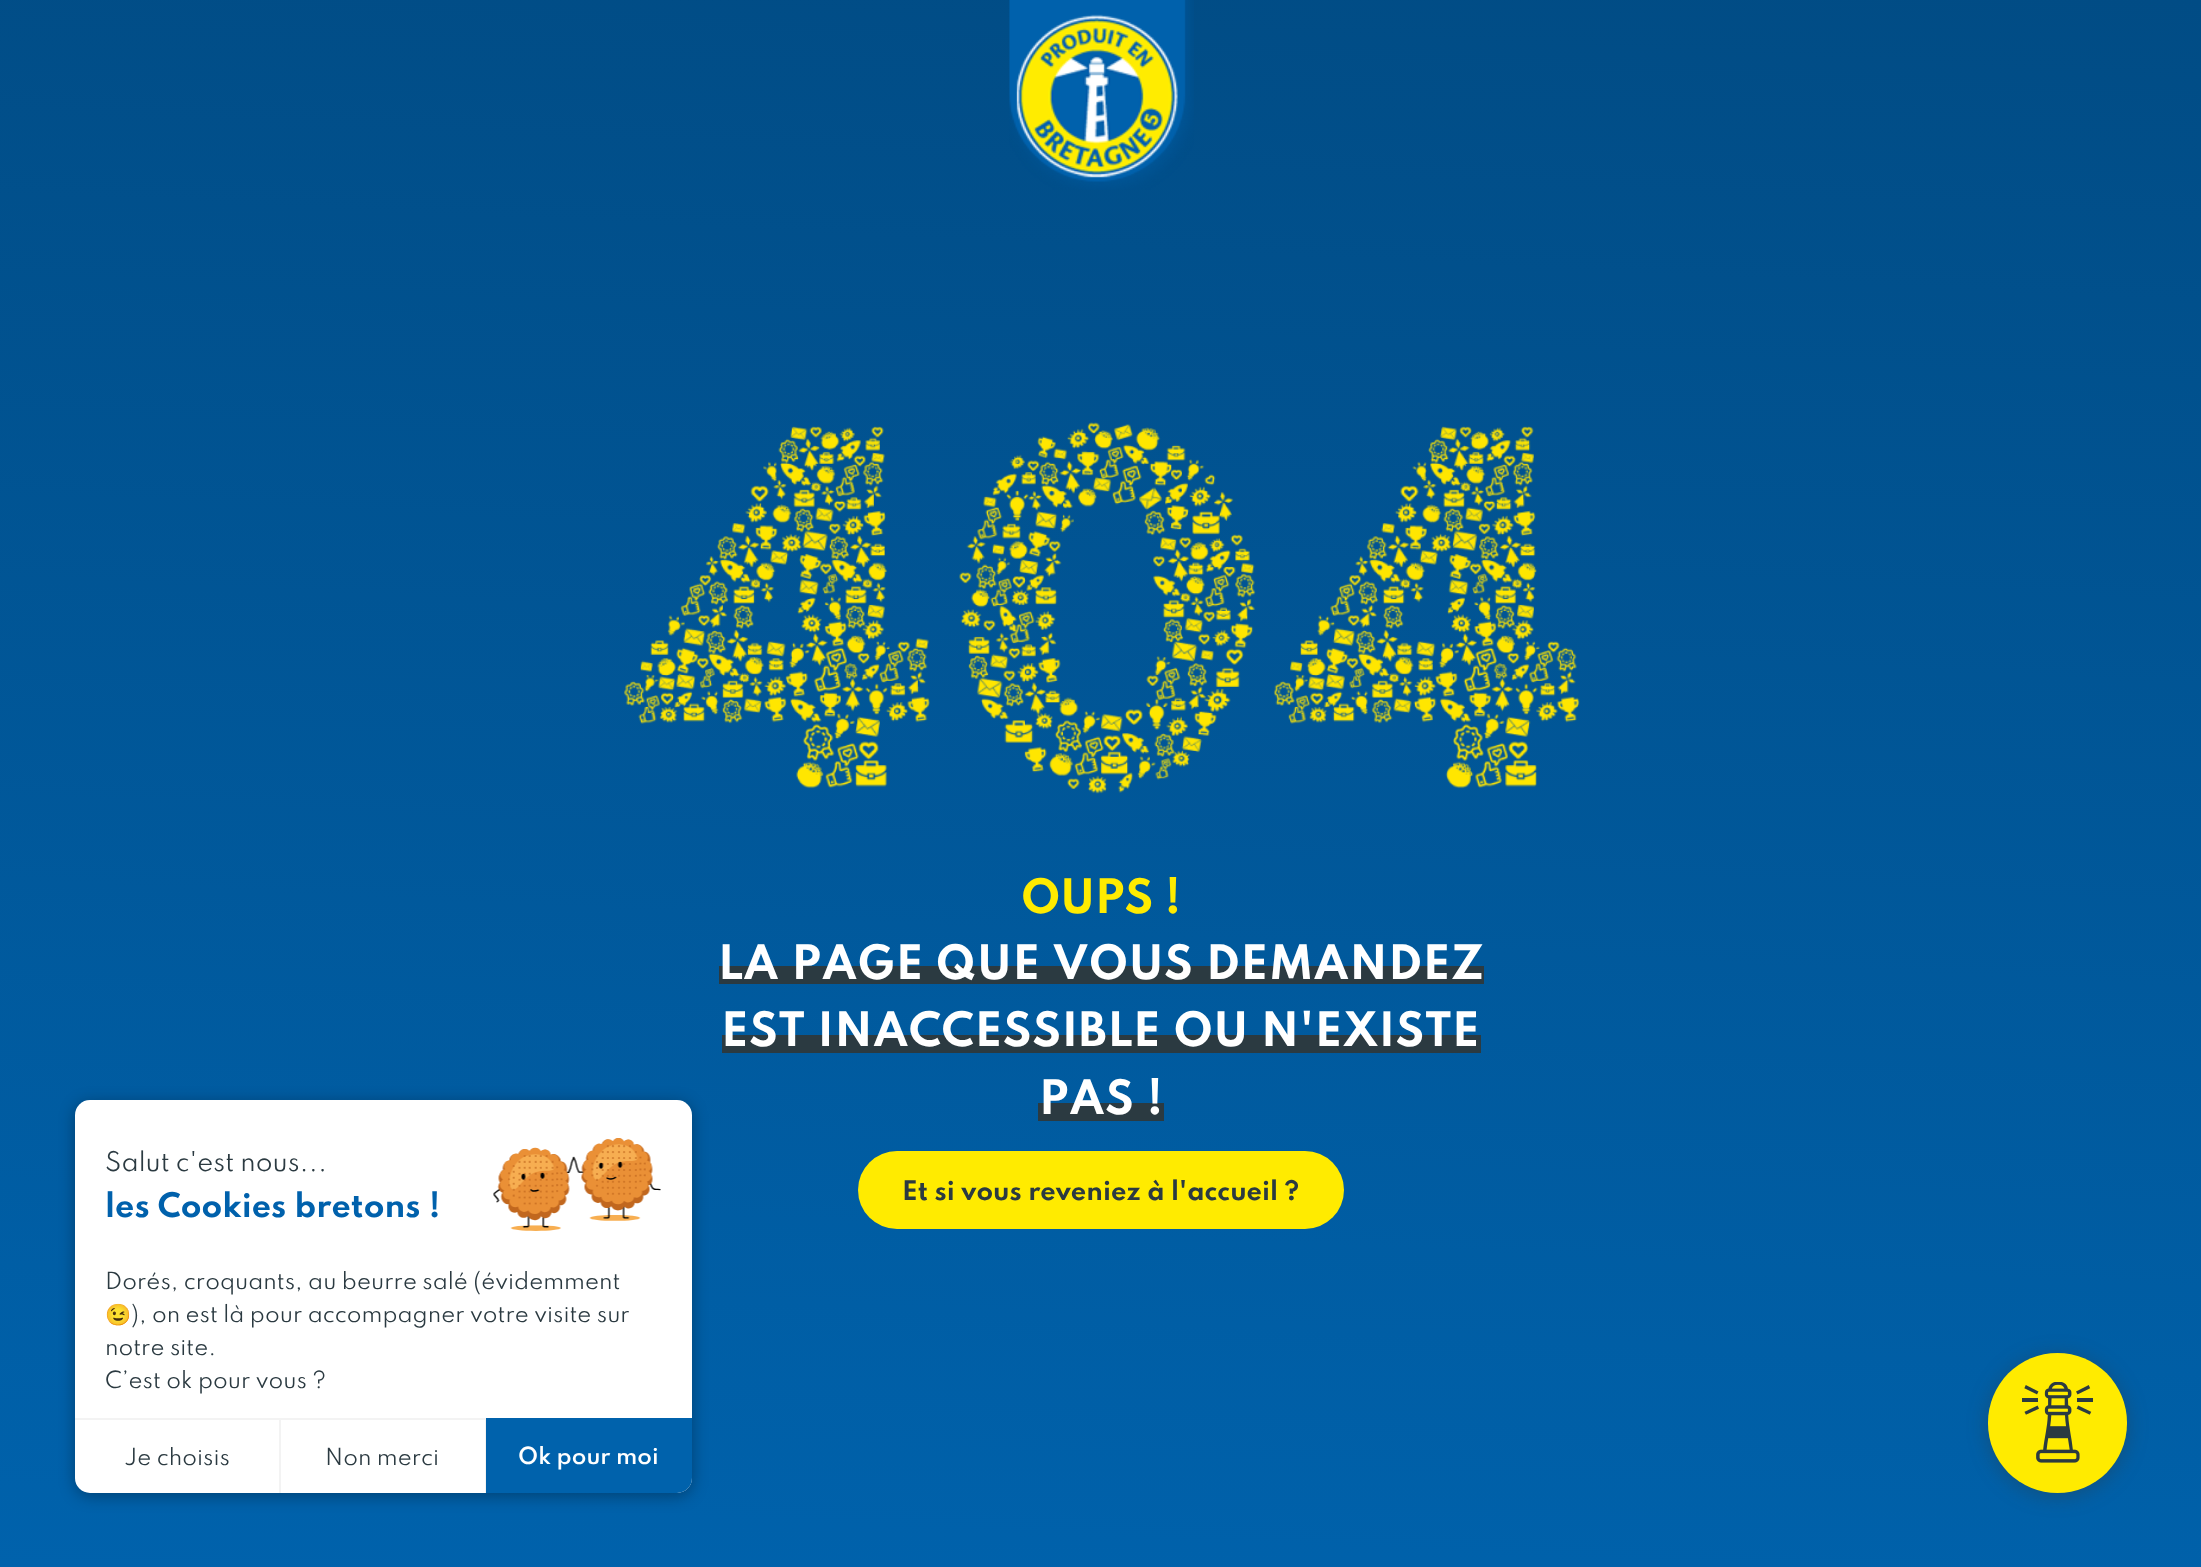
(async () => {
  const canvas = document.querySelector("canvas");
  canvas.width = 2201;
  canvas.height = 1567;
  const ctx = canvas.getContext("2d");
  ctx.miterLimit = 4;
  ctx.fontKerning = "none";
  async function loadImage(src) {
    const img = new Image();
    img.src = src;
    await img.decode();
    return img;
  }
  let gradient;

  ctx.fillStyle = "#ffffff";
  ctx.fillRect(0, 0, 2201, 1567);
  gradient = ctx.createLinearGradient(1142, -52, 1060, 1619);
  gradient.addColorStop(0, "#014c85");
  gradient.addColorStop(1, "#0062ac");
  ctx.fillStyle = gradient;
  ctx.fillRect(0, 0, 2201, 1567);
  ctx.drawImage(await loadImage("img/1.png"), 1009, 0, 185, 190);
  ctx.drawImage(await loadImage("img/2.png"), 624, 422, 956, 372);
  for (const [x, y, w, h, color] of [
    [719, 966, 765, 18, "#2b3a41"],
    [722, 1035, 759, 18, "#2b3a41"],
    [1038, 1103, 126, 18, "#2b3a41"],
  ]) {
    ctx.fillStyle = color;
    ctx.fillRect(x, y, w, h);
  }
  ctx.fillStyle = "#ffeb00";
  ctx.beginPath();
  ctx.roundRect(858, 1151, 486, 78, 39);
  ctx.fill();
  ctx.fillStyle = "rgba(0, 0, 0, 0.32)";
  ctx.filter = "blur(8px)";
  ctx.beginPath();
  ctx.roundRect(75, 1103, 617, 393, 15);
  ctx.fill();
  ctx.filter = "none";
  ctx.fillStyle = "#ffffff";
  ctx.beginPath();
  ctx.roundRect(75, 1100, 617, 393, 15);
  ctx.fill();
  ctx.drawImage(await loadImage("img/3.png"), 493, 1138, 168, 93);
  for (const [x, y, w, h, color] of [
    [75, 1418, 411, 2, "#f3f3f3"],
    [279, 1418, 2, 75, "#f3f3f3"],
    [485, 1418, 1, 75, "#f3f3f3"],
  ]) {
    ctx.fillStyle = color;
    ctx.fillRect(x, y, w, h);
  }
  ctx.fillStyle = "#0062ac";
  ctx.beginPath();
  ctx.roundRect(486, 1418, 206, 75, [0, 0, 15, 0]);
  ctx.fill();
  ctx.fillStyle = "rgba(43, 58, 65, 0.41)";
  ctx.filter = "blur(10px)";
  ctx.beginPath();
  ctx.roundRect(1988, 1356, 139, 140, 69.5);
  ctx.fill();
  ctx.filter = "none";
  ctx.fillStyle = "#ffeb00";
  ctx.beginPath();
  ctx.roundRect(1988, 1353, 139, 140, 69.5);
  ctx.fill();
  ctx.drawImage(await loadImage("img/4.png"), 2022, 1382, 71, 81);
  ctx.font = "bold 42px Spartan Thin";
  ctx.fillText("OUPS !", 1021, 913);
  ctx.letterSpacing = "0.75px";
  ctx.fillStyle = "#ffffff";
  for (const [text, x, y] of [
    ["LA PAGE QUE VOUS", 718, 979],
    ["DEMANDEZ", 1206, 979],
    ["EST INACCESSIBLE OU N'EXISTE", 721, 1046],
    ["PAS !", 1039, 1114],
  ]) {
    ctx.fillText(text, x, y);
  }
  ctx.letterSpacing = "0px";
  ctx.font = "bold 24px Spartan Thin";
  ctx.fillStyle = "#2b3a41";
  ctx.fillText("Et si vous reveniez à l'accueil ?", 902, 1200);
  ctx.font = "24px Spartan Thin";
  ctx.fillText("Salut c'est nous...", 105, 1171);
  ctx.font = "bold 30px Spartan Thin";
  ctx.fillStyle = "#0061ac";
  ctx.fillText("les Cookies bretons !", 105, 1217);
  ctx.font = "21px Spartan Thin";
  ctx.fillStyle = "#2b3a41";
  ctx.fillText("Dorés, croquants, au beurre salé (évidemment", 105, 1289);
  ctx.font = "21px Noto Color Emoji";
  ctx.fillText("😉", 105, 1322);
  ctx.font = "21px Spartan Thin";
  for (const [text, x, y] of [
    ["), on est là pour accompagner votre visite sur", 131, 1322],
    ["notre site.", 105, 1355],
    ["C’est ok pour vous ?", 105, 1388],
    ["Je choisis", 124, 1465],
    ["Non merci", 325, 1465],
  ]) {
    ctx.fillText(text, x, y);
  }
  ctx.font = "600 21px Spartan Thin";
  ctx.fillStyle = "#ffffff";
  ctx.fillText("Ok pour moi", 518, 1464);
})();
